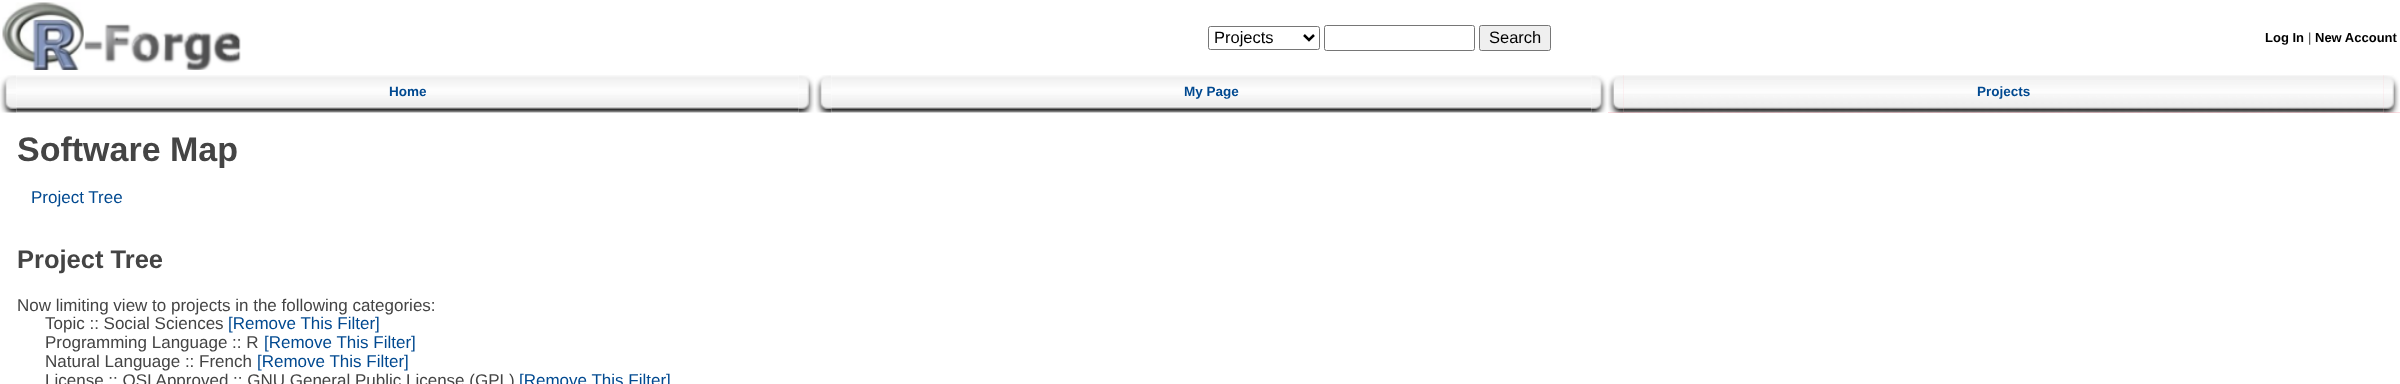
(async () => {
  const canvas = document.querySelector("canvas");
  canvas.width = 2400;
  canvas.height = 384;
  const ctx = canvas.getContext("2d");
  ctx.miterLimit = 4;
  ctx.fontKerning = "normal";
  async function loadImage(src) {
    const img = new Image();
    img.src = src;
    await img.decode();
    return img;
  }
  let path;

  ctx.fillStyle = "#ffffff";
  ctx.fillRect(0, 0, 2400, 384);
  ctx.drawImage(await loadImage("img/1.png"), 2, 2, 239, 68);
  ctx.beginPath();
  ctx.roundRect(1208.5, 26.5, 111, 23, 2);
  ctx.strokeStyle = "#767676";
  ctx.stroke();
  path = new Path2D("M1304 35L1309 40L1314 35");
  ctx.strokeStyle = "#000000";
  ctx.lineWidth = 2.5;
  ctx.stroke(path);
  ctx.beginPath();
  ctx.roundRect(1324.5, 25.5, 150, 25, 2);
  ctx.strokeStyle = "#767676";
  ctx.lineWidth = 1;
  ctx.stroke();
  ctx.fillStyle = "#efefef";
  ctx.beginPath();
  ctx.roundRect(1479.5, 25.5, 71, 25, 2);
  ctx.fill();
  ctx.stroke();
  ctx.drawImage(await loadImage("img/2.png"), 0, 75, 17, 38);
  ctx.drawImage(await loadImage("img/3.png"), 16, 75, 783, 38);
  ctx.drawImage(await loadImage("img/4.png"), 798, 75, 17, 38);
  ctx.drawImage(await loadImage("img/5.png"), 815, 75, 17, 38);
  ctx.drawImage(await loadImage("img/6.png"), 831, 75, 761, 38);
  ctx.drawImage(await loadImage("img/7.png"), 1591, 75, 16, 38);
  ctx.fillStyle = "#ffc0cb";
  ctx.fillRect(1608, 75, 776, 38);
  ctx.drawImage(await loadImage("img/8.png"), 1607, 75, 17, 38);
  ctx.fillRect(2384, 112, 16, 1);
  ctx.drawImage(await loadImage("img/10.png"), 1623, 75, 761, 38);
  ctx.drawImage(await loadImage("img/9.png"), 2383, 75, 17, 38);
  ctx.font = "16.5px Liberation Sans";
  ctx.fillStyle = "#000000";
  ctx.fillText("Projects", 1214, 43);
  ctx.fillText("Search", 1489, 43);
  ctx.font = "bold 13px Liberation Sans";
  ctx.fillText("Log In", 2265, 42);
  ctx.font = "13px Liberation Sans";
  ctx.fillStyle = "#444444";
  ctx.fillText("|", 2308, 42);
  ctx.font = "bold 13px Liberation Sans";
  ctx.fillStyle = "#000000";
  ctx.fillText("New Account", 2315, 42);
  ctx.font = "bold 13.5px Liberation Sans";
  ctx.fillStyle = "#014990";
  for (const [text, x, y] of [
    ["Home", 389, 96],
    ["My Page", 1184, 96],
    ["Projects", 1977, 96],
  ]) {
    ctx.fillText(text, x, y);
  }
  ctx.font = "bold 34px Liberation Sans";
  ctx.fillStyle = "#444444";
  ctx.fillText("Software Map", 17, 161);
  ctx.font = "17px Liberation Sans";
  ctx.fillStyle = "#014990";
  ctx.fillText("Project Tree", 31, 203);
  ctx.font = "bold 25.5px Liberation Sans";
  ctx.fillStyle = "#444444";
  ctx.fillText("Project Tree", 17, 268);
  ctx.font = "17px Liberation Sans";
  ctx.fillText("Now limiting view to projects in the following categories:", 17, 311);
  ctx.fillText("Topic :: Social Sciences", 45, 329);
  ctx.fillStyle = "#014990";
  ctx.fillText("[Remove This Filter]", 228, 329);
  ctx.fillStyle = "#444444";
  ctx.fillText("Programming Language :: R", 45, 348);
  ctx.fillStyle = "#014990";
  ctx.fillText("[Remove This Filter]", 264, 348);
  ctx.fillStyle = "#444444";
  ctx.fillText("Natural Language :: French", 45, 367);
  ctx.fillStyle = "#014990";
  ctx.fillText("[Remove This Filter]", 257, 367);
  ctx.fillStyle = "#444444";
  ctx.fillText("License :: OSI Approved :: GNU General Public License (GPL)", 45, 386);
  ctx.fillStyle = "#014990";
  ctx.fillText("[Remove This Filter]", 519, 386);
})();
